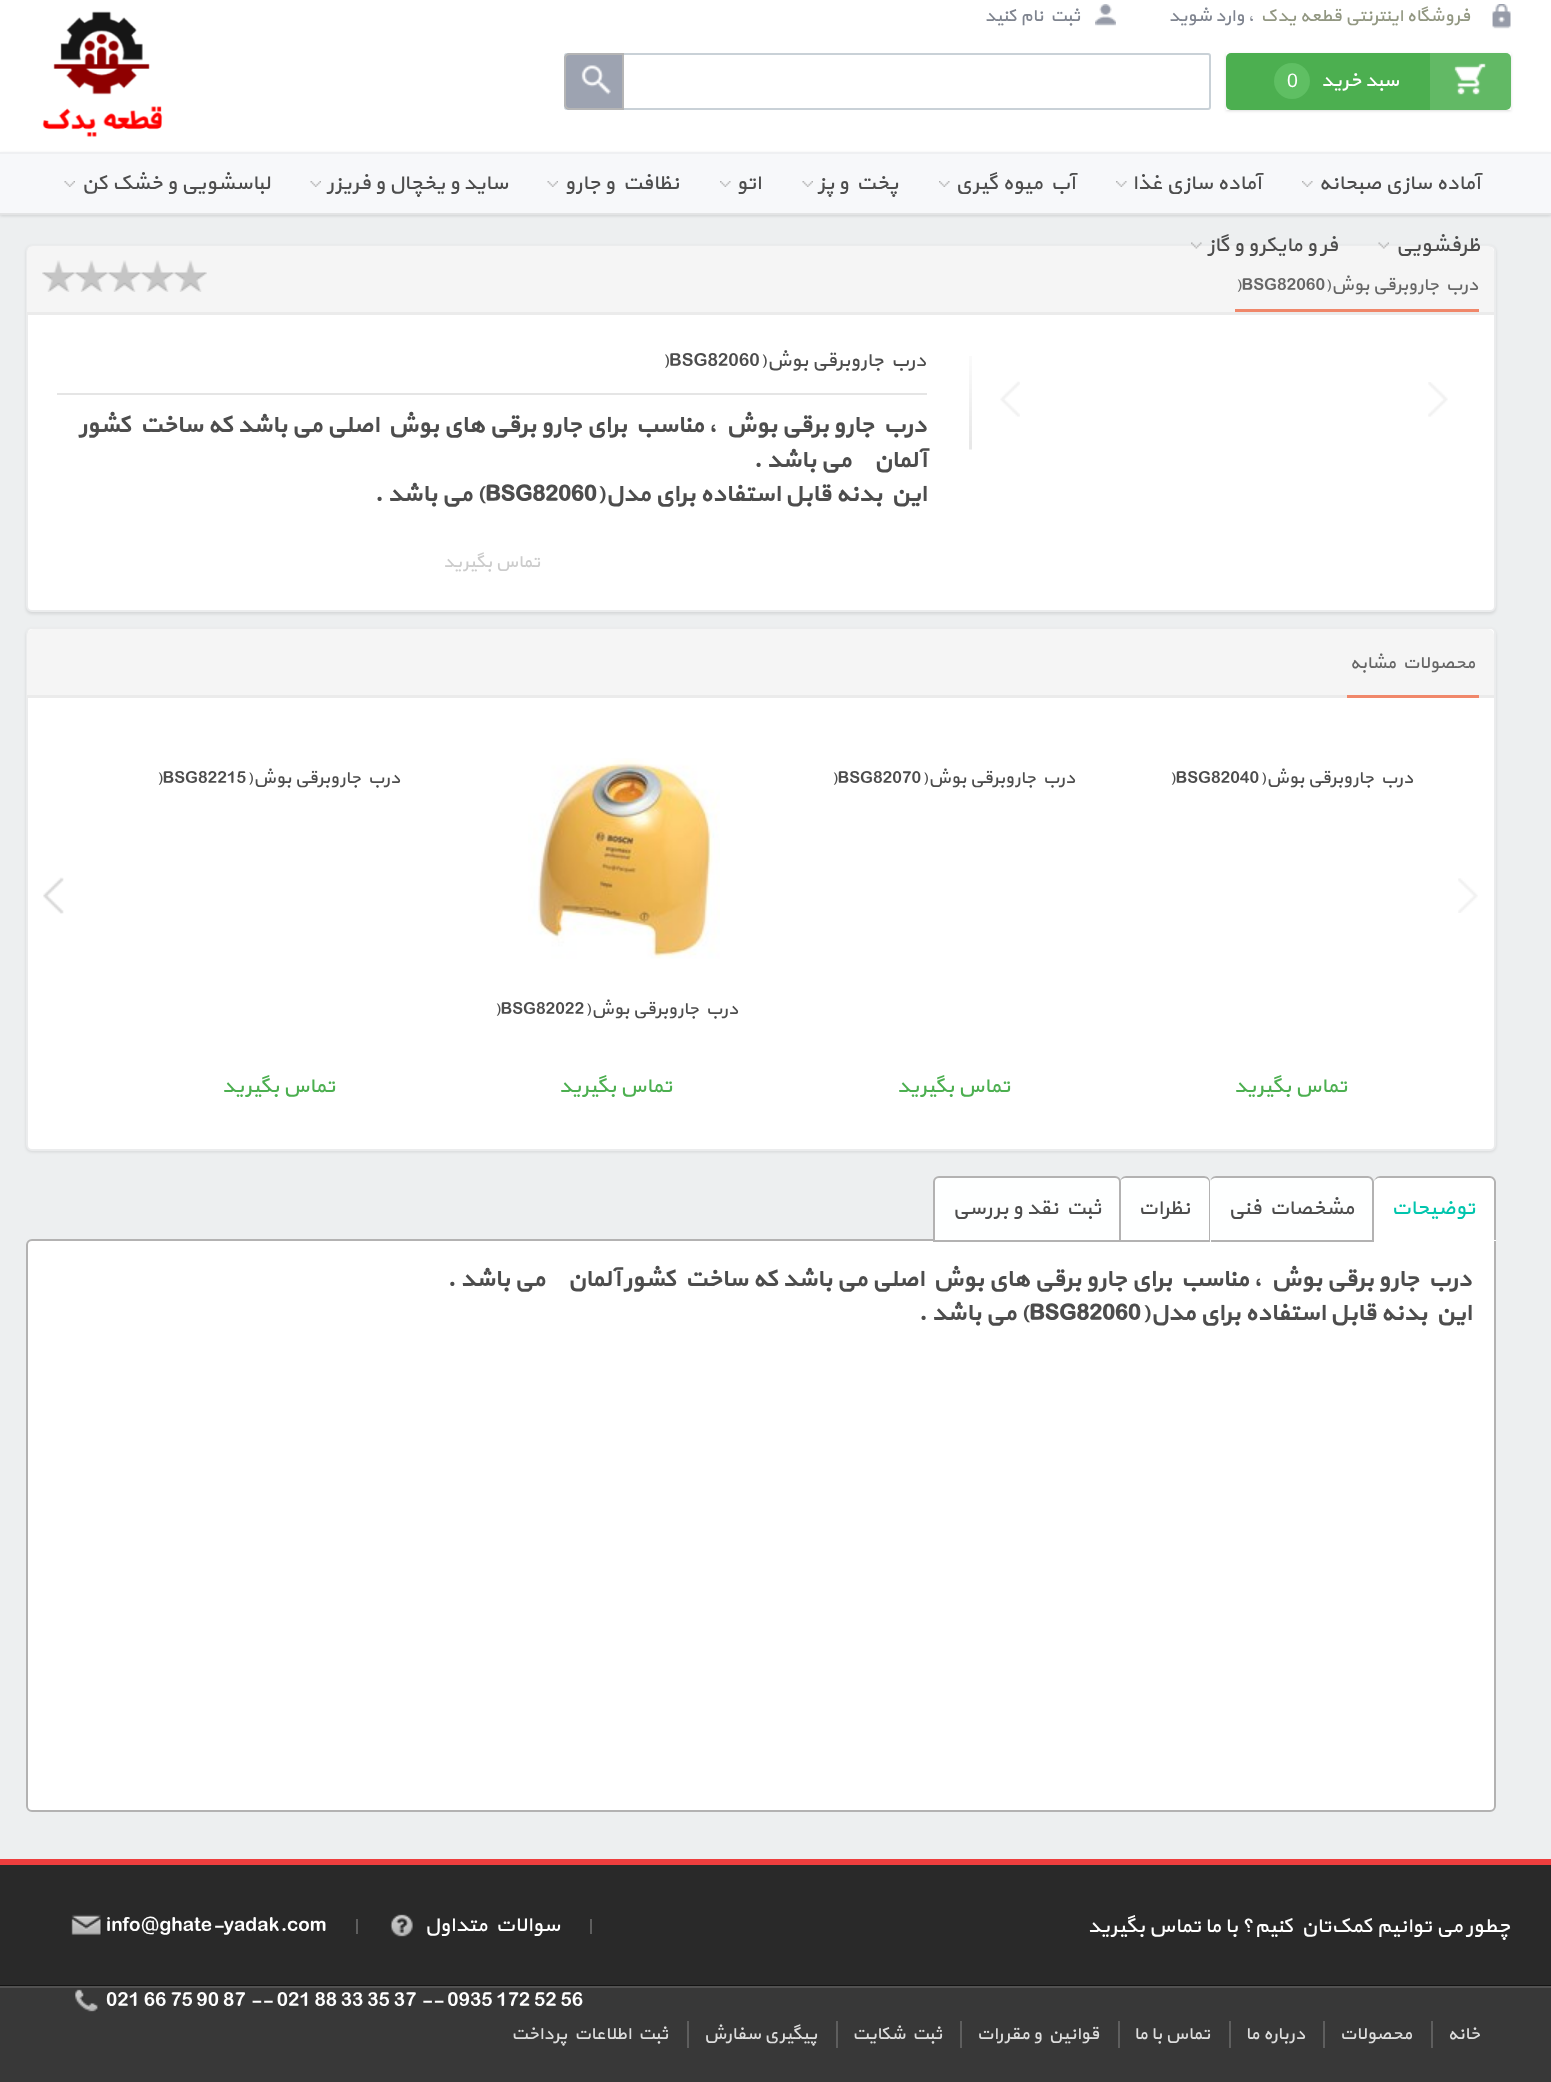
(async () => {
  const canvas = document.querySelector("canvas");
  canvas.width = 1551;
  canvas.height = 2082;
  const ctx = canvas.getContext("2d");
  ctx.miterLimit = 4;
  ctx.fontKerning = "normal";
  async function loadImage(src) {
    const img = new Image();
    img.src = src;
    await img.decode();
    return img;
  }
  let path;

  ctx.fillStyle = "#edeff0";
  ctx.fillRect(0, 0, 1551, 2082);
  ctx.fillStyle = "#ffffff";
  ctx.fillRect(0, 0, 1551, 152);
  ctx.drawImage(await loadImage("img/1.png"), 1492, 4, 19, 25);
  ctx.drawImage(await loadImage("img/2.png"), 1095, 4, 21, 22);
  ctx.save();
  path = new Path2D("M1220 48H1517V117H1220ZM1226 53H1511V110H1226Z");
  ctx.clip(path, "evenodd");
  ctx.fillStyle = "#dddddd";
  ctx.filter = "blur(1.5px)";
  ctx.beginPath();
  ctx.rect(1226, 54, 285, 57);
  ctx.fill();
  ctx.filter = "none";
  ctx.restore();
  ctx.fillStyle = "#62b965";
  ctx.beginPath();
  ctx.roundRect(1430, 53, 81, 57, [0, 5, 5, 0]);
  ctx.fill();
  ctx.drawImage(await loadImage("img/3.png"), 1454, 63, 32, 32);
  ctx.fillStyle = "#4caf50";
  ctx.beginPath();
  ctx.roundRect(1226, 53, 204, 57, [5, 0, 0, 5]);
  ctx.fill();
  ctx.fillStyle = "#5fbf63";
  ctx.beginPath();
  ctx.arc(1292, 81, 18, 0, Math.PI * 2);
  ctx.fill();
  ctx.beginPath();
  ctx.roundRect(565, 54, 645, 55, 2);
  ctx.strokeStyle = "#c9d1d7";
  ctx.lineWidth = 2;
  ctx.stroke();
  ctx.fillStyle = "#9da3b1";
  ctx.beginPath();
  ctx.roundRect(564, 53, 60, 57, [6, 0, 0, 6]);
  ctx.fill();
  ctx.drawImage(await loadImage("img/4.png"), 581, 65, 30, 30);
  ctx.beginPath();
  ctx.roundRect(565, 54, 58, 55, [5, 0, 0, 5]);
  ctx.strokeStyle = "#b5b5b5";
  ctx.stroke();
  ctx.drawImage(await loadImage("img/5.png"), 42, 11, 121, 126);
  ctx.fillStyle = "rgba(0, 0, 0, 0.12)";
  ctx.filter = "blur(1.5px)";
  ctx.beginPath();
  ctx.rect(0, 153, 1551, 63);
  ctx.fill();
  ctx.filter = "none";
  for (const [x, y, w, h, color] of [
    [0, 154, 1551, 59, "#f7f8fa"],
    [0, 152, 1551, 2, "#eff0f2"],
    [0, 213, 1551, 2, "#e3e4e5"],
  ]) {
    ctx.fillStyle = color;
    ctx.fillRect(x, y, w, h);
  }
  ctx.drawImage(await loadImage("img/6.png"), 1302, 181, 11, 6);
  ctx.drawImage(await loadImage("img/7.png"), 1116, 181, 11, 6);
  ctx.drawImage(await loadImage("img/6.png"), 939, 181, 11, 6);
  ctx.drawImage(await loadImage("img/8.png"), 802, 181, 11, 6);
  ctx.drawImage(await loadImage("img/7.png"), 720, 181, 11, 6);
  ctx.drawImage(await loadImage("img/9.png"), 547, 181, 11, 6);
  ctx.drawImage(await loadImage("img/8.png"), 310, 181, 11, 6);
  ctx.drawImage(await loadImage("img/8.png"), 64, 181, 11, 6);
  ctx.fillStyle = "rgba(0, 0, 0, 0.1)";
  ctx.filter = "blur(1.5px)";
  ctx.beginPath();
  ctx.roundRect(26, 246, 1470, 368, 6);
  ctx.fill();
  ctx.filter = "none";
  ctx.fillStyle = "#ffffff";
  ctx.beginPath();
  ctx.roundRect(27, 246, 1468, 365, 5);
  ctx.fill();
  ctx.strokeStyle = "#ebeced";
  ctx.stroke();
  ctx.save();
  ctx.beginPath();
  ctx.roundRect(27, 246, 1467, 365, 5);
  ctx.clip();
  ctx.fillStyle = "#f5f5f5";
  ctx.beginPath();
  ctx.roundRect(27, 246, 1467, 69, [6, 6, 0, 0]);
  ctx.fill();
  ctx.restore();
  ctx.drawImage(await loadImage("img/10.png"), 1378, 242, 11, 7);
  ctx.drawImage(await loadImage("img/11.png"), 1191, 242, 11, 7);
  ctx.fillStyle = "#ebebeb";
  ctx.fillRect(27, 312, 1467, 3);
  ctx.fillStyle = "#f0876a";
  ctx.fillRect(1235, 309, 244, 3);
  ctx.drawImage(await loadImage("img/12.png"), 42, 260, 165, 32);
  ctx.drawImage(await loadImage("img/13.png"), 969, 356, 3, 94);
  ctx.drawImage(await loadImage("img/14.png"), 1428, 382, 20, 35);
  ctx.drawImage(await loadImage("img/15.png"), 1000, 381, 20, 36);
  ctx.fillStyle = "#e5e5e5";
  ctx.fillRect(57, 393, 870, 2);
  ctx.fillStyle = "rgba(0, 0, 0, 0.1)";
  ctx.filter = "blur(1.5px)";
  ctx.beginPath();
  ctx.roundRect(26, 629, 1470, 523, 6);
  ctx.fill();
  ctx.filter = "none";
  ctx.fillStyle = "#ffffff";
  ctx.beginPath();
  ctx.roundRect(27, 628, 1468, 522, 5);
  ctx.fill();
  ctx.stroke();
  ctx.save();
  ctx.beginPath();
  ctx.roundRect(27, 629, 1467, 520, 5);
  ctx.clip();
  ctx.fillStyle = "#f5f5f5";
  ctx.beginPath();
  ctx.roundRect(27, 629, 1467, 69, [6, 6, 0, 0]);
  ctx.fill();
  ctx.restore();
  ctx.fillStyle = "#ebebeb";
  ctx.fillRect(27, 695, 1467, 3);
  ctx.fillStyle = "#f0876a";
  ctx.fillRect(1347, 695, 132, 3);
  ctx.drawImage(await loadImage("img/16.png"), 1458, 878, 20, 35);
  ctx.drawImage(await loadImage("img/17.png"), 528, 758, 192, 201);
  ctx.drawImage(await loadImage("img/18.png"), 43, 877, 21, 37);
  ctx.fillStyle = "#ffffff";
  ctx.beginPath();
  ctx.roundRect(27, 1240, 1468, 571, [5, 0, 5, 5]);
  ctx.fill();
  ctx.strokeStyle = "#b3b2b2";
  ctx.stroke();
  ctx.fillStyle = "#feffff";
  ctx.beginPath();
  ctx.roundRect(1374, 1176, 122, 65, [6, 6, 0, 0]);
  ctx.fill();
  ctx.fillStyle = "#b3b2b2";
  path = new Path2D("M1380 1176H1490C1493 1176 1496 1179 1496 1182V1240H1374V1182C1374 1179 1377 1176 1380 1176ZM1380 1178H1490C1492 1178 1494 1180 1494 1182V1240H1374V1182C1374 1180 1377 1178 1380 1178Z");
  ctx.fill(path, "evenodd");
  ctx.fillStyle = "#ffffff";
  ctx.beginPath();
  ctx.roundRect(1374, 1178, 120, 63, [6, 6, 0, 0]);
  ctx.fill();
  ctx.fillStyle = "#feffff";
  ctx.beginPath();
  ctx.roundRect(1211, 1176, 163, 66, [6, 6, 0, 0]);
  ctx.fill();
  ctx.fillStyle = "#b3b2b2";
  path = new Path2D("M1216 1176H1368C1371 1176 1374 1179 1374 1182V1242H1210V1182C1210 1179 1213 1176 1216 1176ZM1216 1178H1368C1370 1178 1372 1180 1372 1182V1240H1210V1182C1210 1180 1213 1178 1216 1178Z");
  ctx.fill(path, "evenodd");
  ctx.fillStyle = "#feffff";
  ctx.beginPath();
  ctx.roundRect(1121, 1176, 90, 66, [6, 6, 0, 0]);
  ctx.fill();
  ctx.fillStyle = "#b3b2b2";
  path = new Path2D("M1126 1176H1204C1208 1176 1210 1179 1210 1182V1242H1120V1182C1120 1179 1123 1176 1126 1176ZM1126 1178H1204C1207 1178 1209 1180 1209 1182V1240H1120V1182C1120 1180 1123 1178 1126 1178Z");
  ctx.fill(path, "evenodd");
  ctx.fillStyle = "#feffff";
  ctx.beginPath();
  ctx.roundRect(934, 1177, 186, 64, [5, 5, 0, 0]);
  ctx.fill();
  ctx.stroke();
  for (const [x, y, w, h, color] of [
    [0, 1859, 1551, 6, "#ee3e3e"],
    [0, 1865, 1551, 120, "#292929"],
    [0, 1985, 1551, 1, "#141414"],
    [590, 1919, 2, 15, "#5e5e5e"],
  ]) {
    ctx.fillStyle = color;
    ctx.fillRect(x, y, w, h);
  }
  ctx.drawImage(await loadImage("img/19.png"), 390, 1914, 23, 23);
  ctx.fillRect(356, 1919, 2, 15);
  ctx.drawImage(await loadImage("img/20.png"), 71, 1914, 31, 21);
  ctx.fillStyle = "#383838";
  ctx.fillRect(0, 1988, 1551, 94);
  ctx.drawImage(await loadImage("img/21.png"), 75, 1989, 23, 23);
  for (const [x, y, w, h, color] of [
    [0, 1986, 1551, 2, "#515151"],
    [1431, 2021, 2, 27, "#5e5e5e"],
    [1323, 2021, 2, 27, "#5e5e5e"],
    [1229, 2021, 2, 27, "#5e5e5e"],
    [1118, 2021, 2, 27, "#5e5e5e"],
    [960, 2021, 2, 27, "#5e5e5e"],
    [836, 2021, 2, 27, "#5e5e5e"],
    [687, 2021, 2, 27, "#5e5e5e"],
  ]) {
    ctx.fillStyle = color;
    ctx.fillRect(x, y, w, h);
  }
  ctx.direction = "rtl";
  ctx.font = "18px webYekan";
  ctx.fillStyle = "#929782";
  ctx.fillText("فروشگاه اینترنتی قطعه یدک", 1470, 21);
  ctx.fillStyle = "#7f848f";
  ctx.fillText("، وارد شوید", 1254, 21);
  ctx.fillText("ثبت نام کنید", 1080, 21);
  ctx.font = "19.5px webYekan";
  ctx.fillStyle = "#ffffff";
  ctx.fillText("سبد خرید", 1399, 86);
  ctx.direction = "ltr";
  ctx.font = "19.5px Liberation Sans";
  ctx.fillText("0", 1287, 87);
  ctx.direction = "rtl";
  ctx.font = "21px webYekan";
  ctx.fillStyle = "#4d4d4d";
  for (const [text, x, y] of [
    ["آماده سازی صبحانه", 1480, 189],
    ["آماده سازی غذا", 1261, 189],
    ["آب میوه گیری", 1075, 189],
    ["پخت و پز", 898, 189],
    ["اتو", 761, 189],
    ["نظافت و جارو", 679, 189],
    ["ساید و یخچال و فریزر", 508, 189],
    ["لباسشویی و خشک کن", 270, 189],
    ["ظرفشویی", 1480, 251],
    ["فر و مایکرو و گاز", 1338, 251],
  ]) {
    ctx.fillText(text, x, y);
  }
  ctx.font = "18px webYekan";
  ctx.fillStyle = "#666666";
  ctx.fillText("درب جاروبرقی بوش(", 1478, 290);
  ctx.direction = "ltr";
  ctx.fillText(")BSG82060", 1235, 290);
  ctx.direction = "rtl";
  ctx.font = "19.5px webYekan";
  ctx.fillStyle = "#4d4d4d";
  ctx.fillText("درب جاروبرقی بوش(", 926, 366);
  ctx.direction = "ltr";
  ctx.fillText(")BSG82060", 662, 366);
  ctx.direction = "rtl";
  ctx.font = "bold 24px webYekan";
  for (const [text, x, y] of [
    ["درب جارو برقی بوش ، مناسب برای جارو برقی های بوش اصلی می باشد که ساخت کشور", 926, 432],
    ["آلمان    می باشد .", 926, 467],
    ["این بدنه قابل استفاده برای مدل(", 926, 501],
  ]) {
    ctx.fillText(text, x, y);
  }
  ctx.direction = "ltr";
  ctx.fillText("BSG82060", 485, 501);
  ctx.direction = "rtl";
  ctx.fillText(") می باشد .", 485, 501);
  ctx.font = "18px webYekan";
  ctx.fillStyle = "#cccccc";
  ctx.fillText("تماس بگیرید", 540, 567);
  ctx.fillStyle = "#666666";
  ctx.fillText("محصولات مشابه", 1475, 668);
  ctx.fillStyle = "#4d4d4d";
  ctx.fillText("درب جاروبرقی بوش(", 1413, 783);
  ctx.direction = "ltr";
  ctx.fillText(")BSG82040", 1169, 783);
  ctx.direction = "rtl";
  ctx.font = "21px webYekan";
  ctx.fillStyle = "#4caf50";
  ctx.fillText("تماس بگیرید", 1347, 1092);
  ctx.font = "18px webYekan";
  ctx.fillStyle = "#4d4d4d";
  ctx.fillText("درب جاروبرقی بوش(", 1075, 783);
  ctx.direction = "ltr";
  ctx.fillText(")BSG82070", 831, 783);
  ctx.direction = "rtl";
  ctx.font = "21px webYekan";
  ctx.fillStyle = "#4caf50";
  ctx.fillText("تماس بگیرید", 1010, 1092);
  ctx.font = "18px webYekan";
  ctx.fillStyle = "#4d4d4d";
  ctx.fillText("درب جاروبرقی بوش(", 738, 1014);
  ctx.direction = "ltr";
  ctx.fillText(")BSG82022", 494, 1014);
  ctx.direction = "rtl";
  ctx.font = "21px webYekan";
  ctx.fillStyle = "#4caf50";
  ctx.fillText("تماس بگیرید", 672, 1092);
  ctx.font = "18px webYekan";
  ctx.fillStyle = "#4d4d4d";
  ctx.fillText("درب جاروبرقی بوش(", 400, 783);
  ctx.direction = "ltr";
  ctx.fillText(")BSG82215", 156, 783);
  ctx.direction = "rtl";
  ctx.font = "21px webYekan";
  ctx.fillStyle = "#4caf50";
  ctx.fillText("تماس بگیرید", 335, 1092);
  ctx.fillStyle = "#00c5ad";
  ctx.fillText("توضیحات", 1475, 1214);
  ctx.fillStyle = "#4d4d4d";
  for (const [text, x, y] of [
    ["مشخصات فنی", 1354, 1214],
    ["نظرات", 1190, 1214],
    ["ثبت نقد و بررسی", 1101, 1214],
  ]) {
    ctx.fillText(text, x, y);
  }
  ctx.font = "bold 24px webYekan";
  ctx.fillText("درب جارو برقی بوش ، مناسب برای جارو برقی های بوش اصلی می باشد که ساخت کشور آلمان    می باشد .", 1471, 1286);
  ctx.fillText("این بدنه قابل استفاده برای مدل(", 1471, 1320);
  ctx.direction = "ltr";
  ctx.fillText("BSG82060", 1029, 1320);
  ctx.direction = "rtl";
  ctx.fillText(") می باشد .", 1029, 1320);
  ctx.font = "21px webYekan";
  ctx.fillStyle = "#ffffff";
  ctx.fillText("چطور می توانیم کمک‌تان کنیم؟ با ما تماس بگیرید", 1510, 1932);
  ctx.fillText("سوالات متداول", 560, 1931);
  ctx.direction = "ltr";
  ctx.fillText("info@ghate-yadak.com", 106, 1931);
  ctx.fillText("021 66 75 90 87 -- 021 88 33 35 37 -- 0935 172 52 56", 106, 2006);
  ctx.direction = "rtl";
  ctx.font = "18px webYekan";
  ctx.fillStyle = "#dddddd";
  for (const [text, x, y] of [
    ["خانه", 1480, 2039],
    ["محصولات", 1412, 2039],
    ["درباره ما", 1305, 2039],
    ["تماس با ما", 1210, 2039],
    ["قوانین و مقررات", 1099, 2039],
    ["ثبت شکایت", 942, 2039],
    ["پیگیری سفارش", 817, 2039],
    ["ثبت اطلاعات پرداخت", 668, 2039],
  ]) {
    ctx.fillText(text, x, y);
  }
})();
